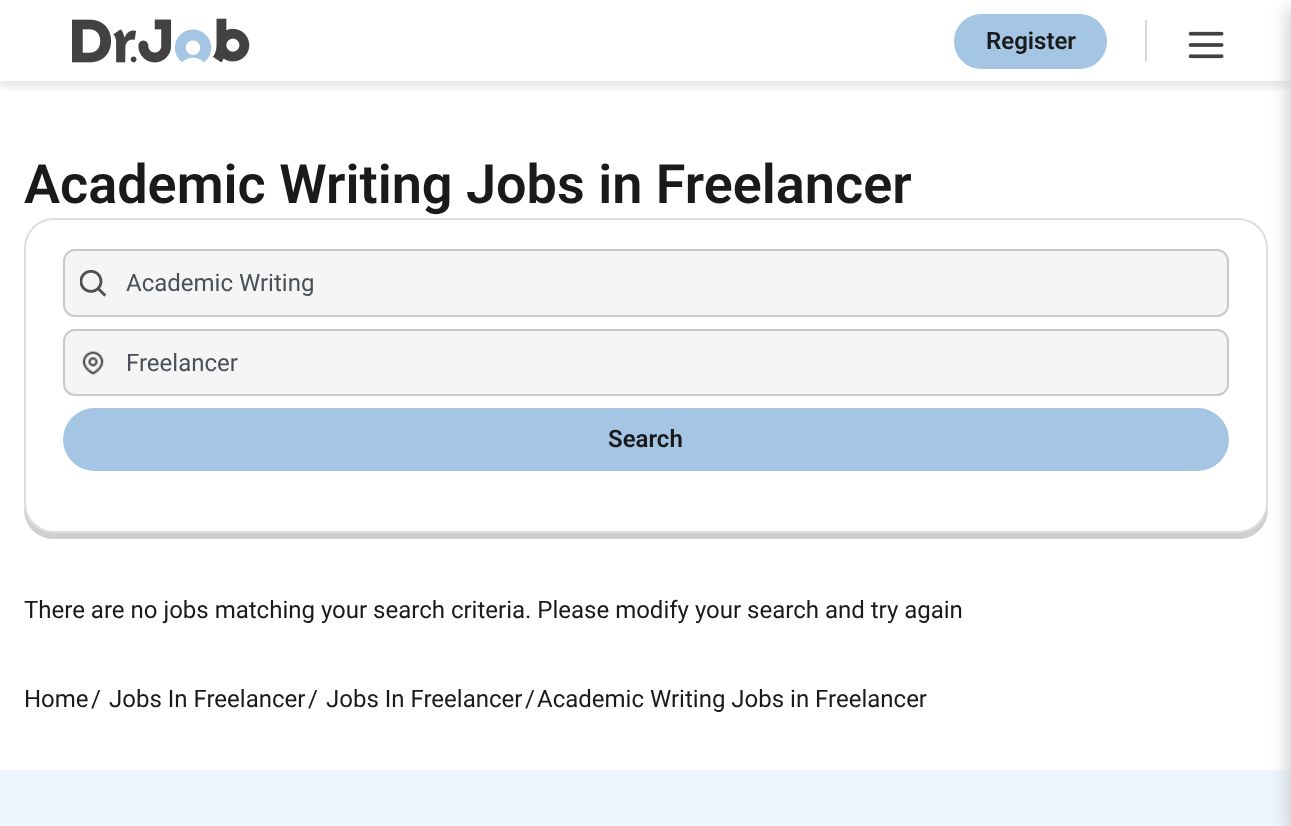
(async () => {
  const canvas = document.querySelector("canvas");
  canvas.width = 1291;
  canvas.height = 826;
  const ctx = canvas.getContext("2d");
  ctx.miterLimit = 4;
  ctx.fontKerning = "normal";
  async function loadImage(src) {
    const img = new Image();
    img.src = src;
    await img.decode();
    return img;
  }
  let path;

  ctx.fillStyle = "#ffffff";
  ctx.fillRect(0, 0, 1291, 826);
  ctx.save();
  ctx.beginPath();
  ctx.rect(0, 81, 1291, 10);
  ctx.clip();
  ctx.fillStyle = "rgba(0, 0, 0, 0.1)";
  ctx.filter = "blur(4.5px)";
  ctx.beginPath();
  ctx.rect(0, 6, 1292, 81);
  ctx.fill();
  ctx.filter = "none";
  ctx.restore();
  ctx.drawImage(await loadImage("img/1.png"), 72, 18, 178, 45);
  ctx.fillStyle = "#a5c5e5";
  ctx.beginPath();
  ctx.roundRect(955, 15, 151, 53, 26.5);
  ctx.fill();
  ctx.strokeStyle = "#a5c5e5";
  ctx.lineWidth = 2;
  ctx.stroke();
  ctx.fillStyle = "#d9d9d9";
  ctx.fillRect(1145, 20, 2, 42);
  ctx.drawImage(await loadImage("img/2.png"), 1188, 31, 36, 28);
  ctx.fillStyle = "#cfcfcf";
  path = new Path2D("M24 502V509C24 526 37 539 54 539H1238C1255 539 1268 526 1268 509V254V249V502C1268 519 1254 532 1238 532H54C37 532 24 519 24 502Z");
  ctx.fill(path);
  ctx.fillStyle = "#ffffff";
  ctx.beginPath();
  ctx.roundRect(25, 219, 1242, 313, 29);
  ctx.fill();
  ctx.strokeStyle = "#dddddd";
  ctx.stroke();
  ctx.fillStyle = "#eef6ff";
  ctx.fillRect(0, 770, 1291, 56);
  ctx.fillStyle = "#c2c2c2";
  ctx.filter = "blur(10px)";
  ctx.beginPath();
  ctx.rect(1290, 9, 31, 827);
  ctx.fill();
  ctx.filter = "none";
  ctx.fillStyle = "#f5f5f5";
  ctx.beginPath();
  ctx.roundRect(64, 250, 1164, 66, 11);
  ctx.fill();
  ctx.strokeStyle = "#c9c9c9";
  ctx.stroke();
  ctx.drawImage(await loadImage("img/3.png"), 80, 270, 27, 27);
  ctx.beginPath();
  ctx.roundRect(64, 330, 1164, 65, 11);
  ctx.fill();
  ctx.stroke();
  ctx.drawImage(await loadImage("img/4.png"), 82, 351, 22, 24);
  ctx.fillStyle = "#a5c5e5";
  ctx.beginPath();
  ctx.roundRect(63, 408, 1166, 63, 31.5);
  ctx.fill();
  ctx.font = "600 24px Roboto";
  ctx.fillStyle = "#1a1a1a";
  ctx.fillText("Register", 986, 49);
  ctx.font = "600 54px Roboto";
  ctx.fillText("Academic Writing Jobs in Freelancer", 24, 203);
  ctx.font = "24px Roboto";
  ctx.fillStyle = "#495057";
  ctx.fillText("Academic Writing", 126, 291);
  ctx.fillText("Freelancer", 126, 371);
  ctx.font = "600 24px Roboto";
  ctx.fillStyle = "#1a1a1a";
  ctx.fillText("Search", 608, 447);
  ctx.font = "24px Roboto";
  for (const [text, x, y] of [
    ["There are no jobs matching your search criteria. Please modify your search and try again", 24, 618],
    ["Home", 24, 707],
    ["/", 91, 707],
    ["Jobs In Freelancer", 109, 707],
    ["/", 308, 707],
    ["Jobs In Freelancer", 326, 707],
    ["/", 525, 707],
    ["Academic Writing Jobs in Freelancer", 537, 707],
  ]) {
    ctx.fillText(text, x, y);
  }
})();
